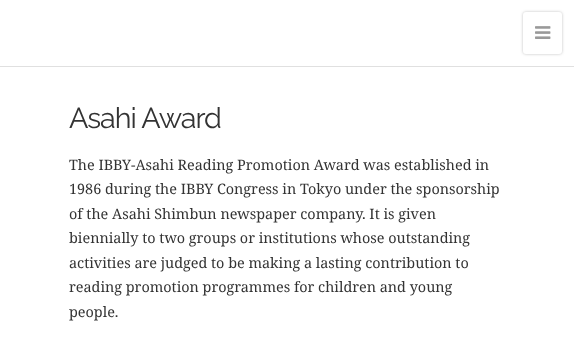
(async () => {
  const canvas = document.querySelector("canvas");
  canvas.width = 574;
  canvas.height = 344;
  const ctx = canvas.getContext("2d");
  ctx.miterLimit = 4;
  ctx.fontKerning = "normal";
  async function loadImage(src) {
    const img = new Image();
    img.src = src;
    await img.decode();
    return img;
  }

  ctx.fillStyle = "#ffffff";
  ctx.fillRect(0, 0, 574, 344);
  ctx.fillStyle = "#e0e0e0";
  ctx.fillRect(0, 66, 574, 1);
  ctx.fillStyle = "rgba(0, 0, 0, 0.24)";
  ctx.filter = "blur(1.5px)";
  ctx.beginPath();
  ctx.roundRect(523, 12, 39, 42, 3);
  ctx.fill();
  ctx.filter = "none";
  ctx.fillStyle = "#ffffff";
  ctx.beginPath();
  ctx.roundRect(523, 12, 39, 42, 3);
  ctx.fill();
  ctx.drawImage(await loadImage("img/1.png"), 535, 26, 16, 13);
  ctx.letterSpacing = "-1px";
  ctx.font = "28.75px Raleway";
  ctx.fillStyle = "#333333";
  ctx.fillText("Asahi Award", 69, 128);
  ctx.letterSpacing = "0px";
  ctx.font = "14.4px Noto Serif";
  for (const [text, x, y] of [
    ["The IBBY-Asahi Reading Promotion Award was established in", 69, 170],
    ["1986 during the IBBY Congress in Tokyo under the sponsorship", 69, 194],
    ["of the Asahi Shimbun newspaper company. It is given", 69, 219],
    ["biennially to two groups or institutions whose outstanding", 69, 243],
    ["activities are judged to be making a lasting contribution to", 69, 268],
    ["reading promotion programmes for children and young", 69, 292],
    ["people.", 69, 317],
  ]) {
    ctx.fillText(text, x, y);
  }
})();
